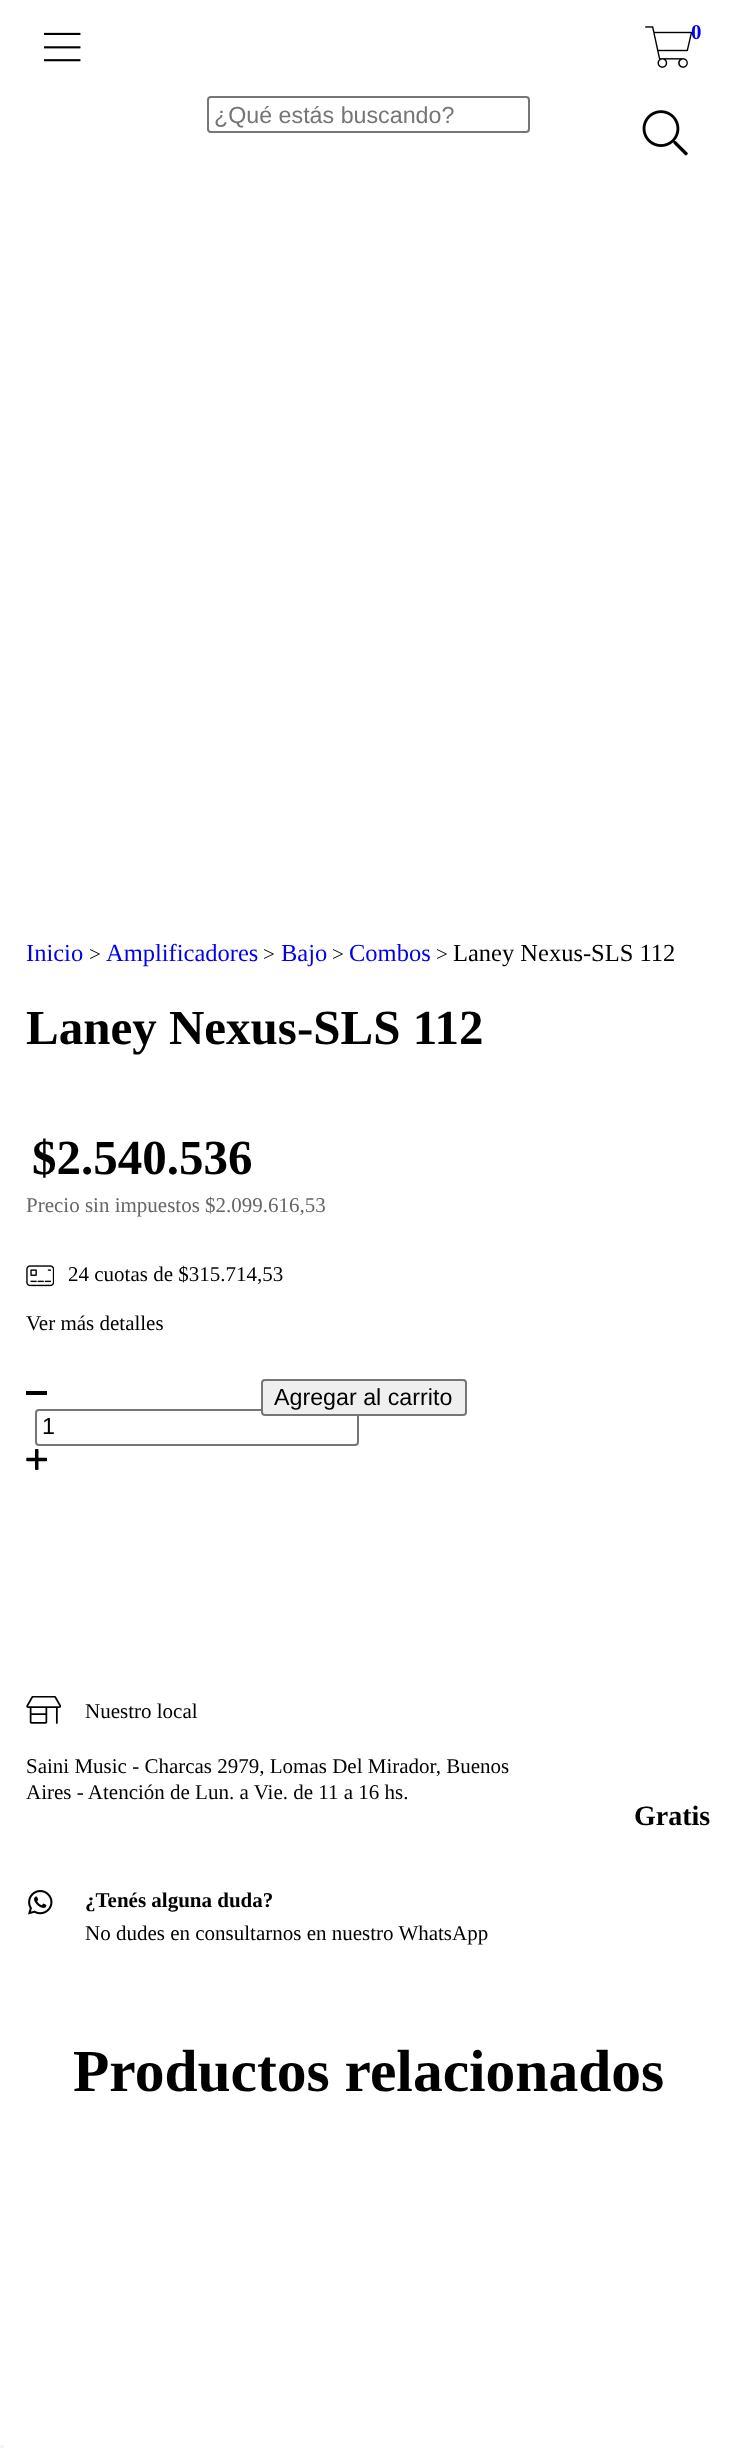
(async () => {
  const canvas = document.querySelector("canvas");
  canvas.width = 736;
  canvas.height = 2448;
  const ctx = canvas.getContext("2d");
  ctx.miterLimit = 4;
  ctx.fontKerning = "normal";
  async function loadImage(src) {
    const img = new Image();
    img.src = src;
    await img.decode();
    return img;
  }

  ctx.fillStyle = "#ffffff";
  ctx.fillRect(0, 0, 736, 2448);
  ctx.drawImage(await loadImage("img/1.png"), 44, 32, 37, 30);
  ctx.drawImage(await loadImage("img/2.png"), 645, 26, 48, 42);
  ctx.beginPath();
  ctx.roundRect(208, 97, 321, 35, 3);
  ctx.strokeStyle = "#767676";
  ctx.lineWidth = 2;
  ctx.stroke();
  ctx.drawImage(await loadImage("img/3.png"), 642, 110, 46, 46);
  ctx.drawImage(await loadImage("img/4.png"), 26, 1265, 28, 22);
  ctx.beginPath();
  ctx.roundRect(36, 1410, 322, 35, 3);
  ctx.stroke();
  ctx.fillStyle = "#efefef";
  ctx.beginPath();
  ctx.roundRect(262, 1380, 204, 35, 3);
  ctx.fill();
  ctx.stroke();
  ctx.fillStyle = "#000000";
  ctx.fillRect(26, 1391, 21, 4);
  ctx.drawImage(await loadImage("img/5.png"), 26, 1449, 21, 21);
  ctx.drawImage(await loadImage("img/6.png"), 26, 1696, 35, 28);
  ctx.drawImage(await loadImage("img/7.png"), 28, 1890, 25, 25);
  ctx.fillStyle = "#f5f5f5";
  ctx.fillRect(0, 2445, 4, 3);
  ctx.font = "bold 21px Liberation Serif";
  ctx.fillStyle = "#0000ee";
  ctx.fillText("0", 691, 39);
  ctx.font = "23.25px Liberation Sans";
  ctx.fillStyle = "#757575";
  ctx.fillText("¿Qué estás buscando?", 214, 123);
  ctx.font = "24.5px Liberation Serif";
  ctx.fillStyle = "#0000ee";
  ctx.fillText("Inicio", 26, 961);
  ctx.font = "21px Liberation Serif";
  ctx.fillStyle = "#000000";
  ctx.fillText(">", 89, 961);
  ctx.font = "24.5px Liberation Serif";
  ctx.fillStyle = "#0000ee";
  ctx.fillText("Amplificadores", 106, 961);
  ctx.font = "21px Liberation Serif";
  ctx.fillStyle = "#000000";
  ctx.fillText(">", 263, 961);
  ctx.font = "24.5px Liberation Serif";
  ctx.fillStyle = "#0000ee";
  ctx.fillText("Bajo", 281, 961);
  ctx.font = "21px Liberation Serif";
  ctx.fillStyle = "#000000";
  ctx.fillText(">", 332, 961);
  ctx.font = "24.5px Liberation Serif";
  ctx.fillStyle = "#0000ee";
  ctx.fillText("Combos", 349, 961);
  ctx.font = "21px Liberation Serif";
  ctx.fillStyle = "#000000";
  ctx.fillText(">", 436, 961);
  ctx.font = "24.5px Liberation Serif";
  ctx.fillText("Laney Nexus-SLS 112", 453, 961);
  ctx.font = "bold 49px Liberation Serif";
  ctx.fillText("Laney Nexus-SLS 112", 26, 1044);
  ctx.fillText("$2.540.536", 32, 1174);
  ctx.font = "21px Liberation Serif";
  ctx.fillStyle = "#666666";
  ctx.fillText("Precio sin impuestos $2.099.616,53", 26, 1212);
  ctx.fillStyle = "#000000";
  ctx.fillText("24 cuotas de $315.714,53", 68, 1281);
  ctx.fillText("Ver más detalles", 26, 1330);
  ctx.font = "23.25px Liberation Sans";
  ctx.fillText("Agregar al carrito", 274, 1405);
  ctx.fillText("1", 42, 1434);
  ctx.font = "21px Liberation Serif";
  for (const [text, x, y] of [
    ["Nuestro local", 85, 1718],
    ["Saini Music - Charcas 2979, Lomas Del Mirador, Buenos", 26, 1773],
    ["Aires - Atención de Lun. a Vie. de 11 a 16 hs.", 26, 1799],
  ]) {
    ctx.fillText(text, x, y);
  }
  ctx.font = "bold 28px Liberation Serif";
  ctx.fillText("Gratis", 634, 1825);
  ctx.font = "bold 21px Liberation Serif";
  ctx.fillText("¿Tenés alguna duda?", 85, 1907);
  ctx.font = "21px Liberation Serif";
  ctx.fillText("No dudes en consultarnos en nuestro WhatsApp", 85, 1940);
  ctx.font = "bold 59.5px Liberation Serif";
  ctx.fillText("Productos relacionados", 73, 2091);
})();
